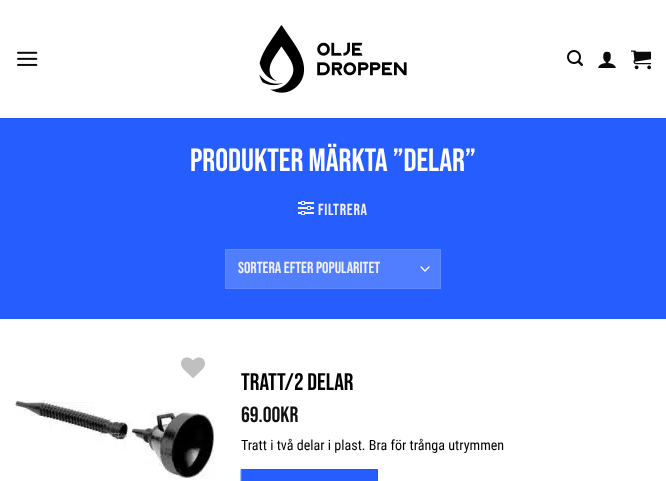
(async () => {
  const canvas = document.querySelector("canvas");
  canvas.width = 666;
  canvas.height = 481;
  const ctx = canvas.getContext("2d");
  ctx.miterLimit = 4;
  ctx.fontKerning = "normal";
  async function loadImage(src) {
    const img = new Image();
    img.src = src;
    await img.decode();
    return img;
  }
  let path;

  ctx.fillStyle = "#ffffff";
  ctx.fillRect(0, 0, 666, 481);
  ctx.drawImage(await loadImage("img/1.png"), 17, 51, 21, 15);
  ctx.drawImage(await loadImage("img/2.png"), 259, 25, 148, 68);
  ctx.drawImage(await loadImage("img/3.png"), 567, 50, 16, 16);
  ctx.drawImage(await loadImage("img/4.png"), 598, 51, 18, 17);
  ctx.drawImage(await loadImage("img/5.png"), 631, 50, 20, 20);
  ctx.fillStyle = "#255dff";
  ctx.fillRect(0, 118, 666, 201);
  ctx.drawImage(await loadImage("img/6.png"), 298, 201, 16, 14);
  ctx.fillStyle = "#517dff";
  ctx.fillRect(226, 250, 214, 38);
  path = new Path2D("M421 267L425 271L429 267");
  ctx.strokeStyle = "#ffffff";
  ctx.lineWidth = 1.3;
  ctx.lineCap = "round";
  ctx.lineJoin = "round";
  ctx.stroke(path);
  ctx.strokeStyle = "#6189ff";
  ctx.lineWidth = 1;
  ctx.lineJoin = "miter";
  ctx.strokeRect(225.5, 249.5, 215, 39);
  ctx.drawImage(await loadImage("img/7.png"), 181, 357, 24, 21);
  ctx.drawImage(await loadImage("img/8.png"), 15, 400, 200, 79);
  ctx.fillStyle = "#255dff";
  ctx.beginPath();
  ctx.rect(241.5, 469.5, 136, 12);
  ctx.fill();
  ctx.strokeStyle = "#2358f2";
  ctx.stroke();
  ctx.font = "32px Bebas Neue";
  ctx.fillStyle = "#ffffff";
  ctx.fillText("Produkter märkta ”delar”", 190, 171);
  ctx.letterSpacing = "0.75px";
  ctx.font = "16px Bebas Neue";
  ctx.fillStyle = "#f1f1f1";
  ctx.fillText("FILTRERA", 318, 215);
  ctx.letterSpacing = "0px";
  ctx.fillText("Sortera efter popularitet", 238, 273);
  ctx.font = "24px Bebas Neue";
  ctx.fillStyle = "#000000";
  ctx.fillText("Tratt/2 delar", 241, 390);
  ctx.font = "22px Bebas Neue";
  ctx.fillStyle = "#111111";
  ctx.fillText("69.00kr", 241, 422);
  ctx.font = "14.1px Roboto Condensed";
  ctx.fillStyle = "#000000";
  ctx.fillText("Tratt i två delar i plast. Bra för trånga utrymmen", 241, 450);
})();
